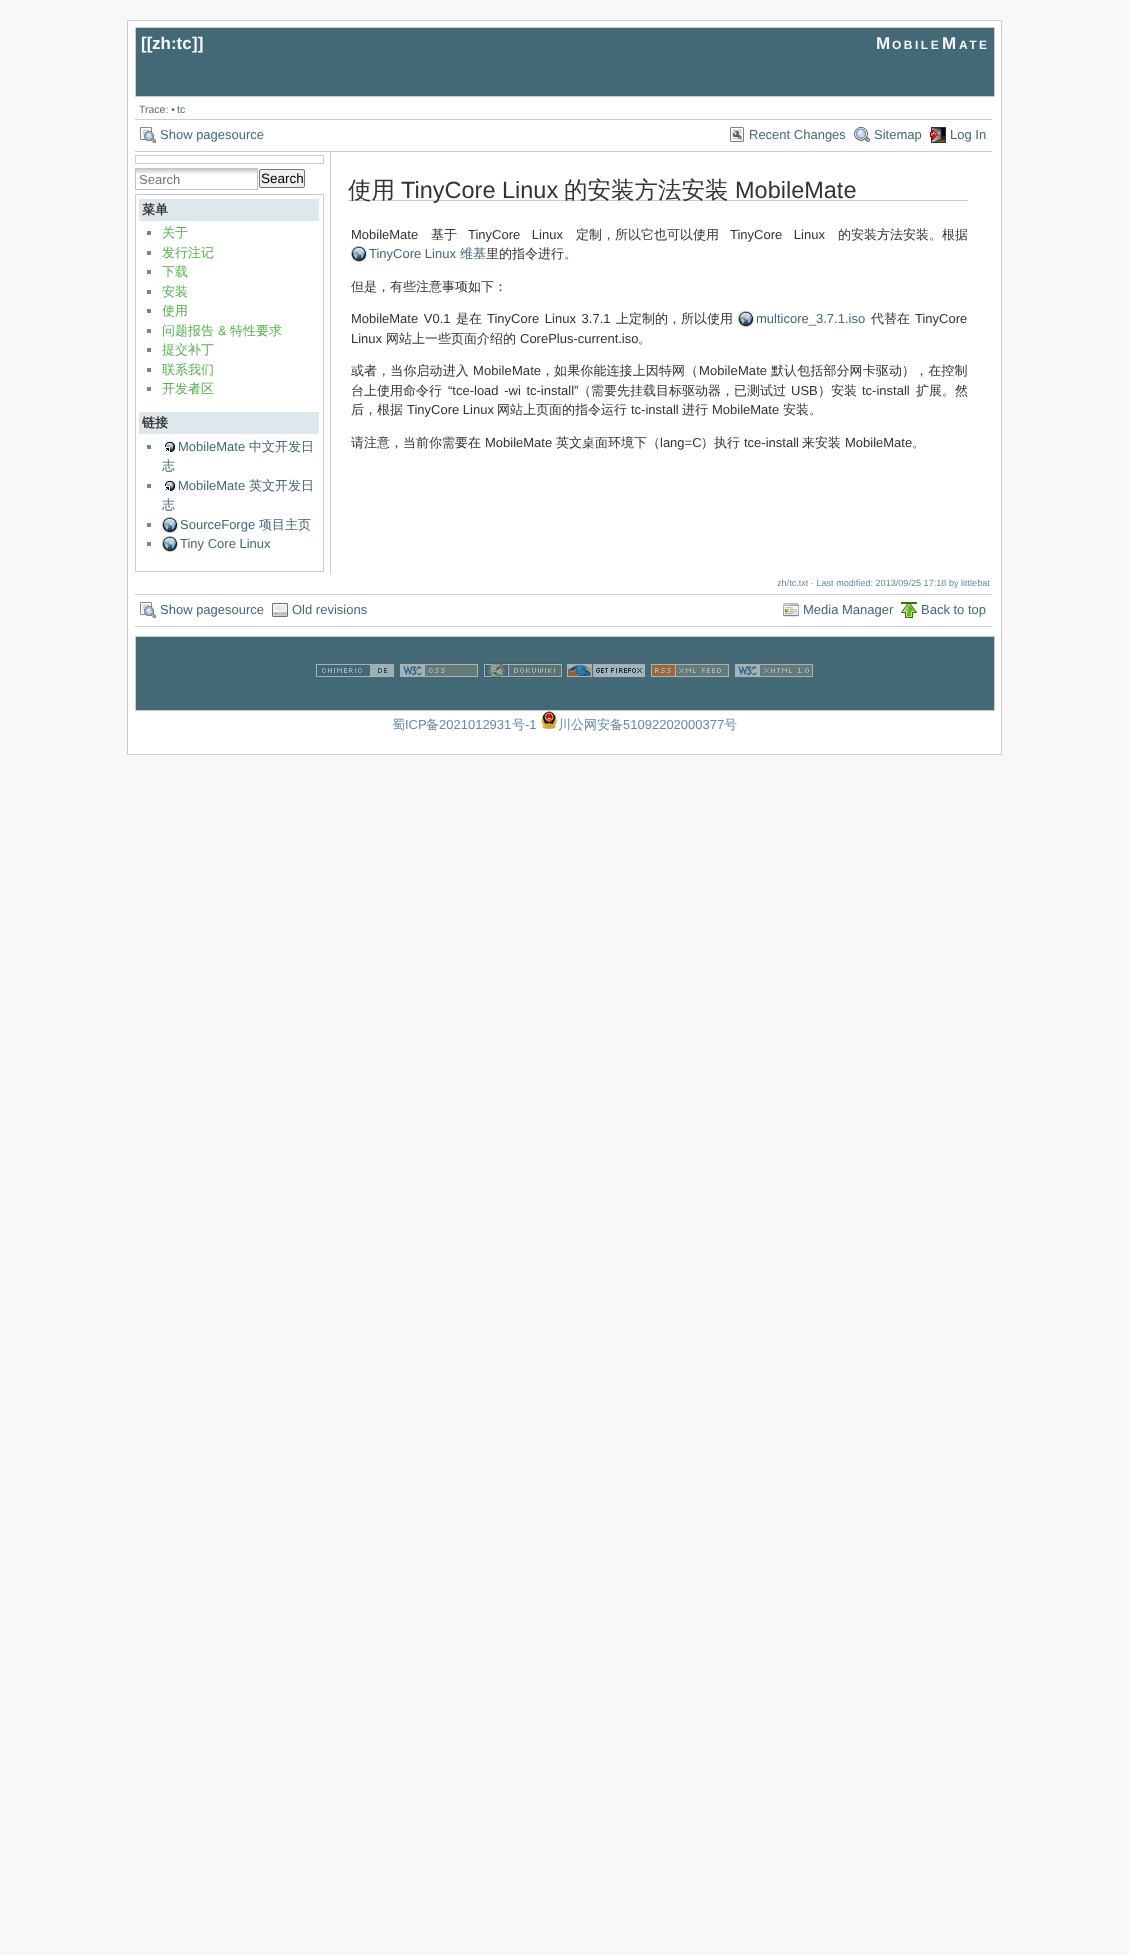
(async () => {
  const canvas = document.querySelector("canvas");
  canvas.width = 1129;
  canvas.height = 1955;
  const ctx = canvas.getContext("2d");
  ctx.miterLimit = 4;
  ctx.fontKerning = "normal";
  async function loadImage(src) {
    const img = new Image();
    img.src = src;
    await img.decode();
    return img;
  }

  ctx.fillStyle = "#f8f8f8";
  ctx.fillRect(0, 0, 1129, 1955);
  ctx.fillStyle = "#ffffff";
  ctx.beginPath();
  ctx.rect(127.5, 20.5, 874, 734);
  ctx.fill();
  ctx.strokeStyle = "#cccccc";
  ctx.stroke();
  ctx.fillStyle = "#436976";
  ctx.beginPath();
  ctx.rect(135.5, 27.5, 859, 69);
  ctx.fill();
  ctx.stroke();
  ctx.fillStyle = "#cccccc";
  ctx.fillRect(135, 119, 857, 1);
  ctx.fillRect(135, 151, 857, 1);
  ctx.drawImage(await loadImage("img/1.png"), 140, 127, 16, 16);
  ctx.drawImage(await loadImage("img/2.png"), 730, 127, 14, 15);
  ctx.drawImage(await loadImage("img/3.png"), 854, 127, 16, 15);
  ctx.drawImage(await loadImage("img/4.png"), 930, 127, 16, 16);
  ctx.fillRect(330, 152, 1, 422);
  ctx.strokeRect(135.5, 155.5, 188, 8);
  ctx.drawImage(await loadImage("img/5.png"), 136, 169, 121, 5);
  ctx.strokeStyle = "#c3c3c3";
  ctx.strokeRect(135.5, 168.5, 122, 21);
  ctx.fillStyle = "#efefef";
  ctx.beginPath();
  ctx.roundRect(259.5, 169.5, 45, 18, 1.5);
  ctx.fill();
  ctx.strokeStyle = "#767676";
  ctx.stroke();
  ctx.strokeStyle = "#cccccc";
  ctx.strokeRect(135.5, 194.5, 188, 377);
  for (const [x, y, w, h, color] of [
    [139, 199, 180, 22, "#dee7ec"],
    [147, 231, 4, 4, "#638c9c"],
    [147, 251, 4, 4, "#638c9c"],
    [147, 270, 4, 4, "#638c9c"],
    [147, 290, 4, 4, "#638c9c"],
    [147, 309, 4, 4, "#638c9c"],
    [147, 329, 4, 4, "#638c9c"],
    [147, 348, 4, 4, "#638c9c"],
    [147, 368, 4, 4, "#638c9c"],
    [147, 387, 4, 4, "#638c9c"],
    [139, 412, 180, 22, "#dee7ec"],
    [147, 445, 4, 4, "#638c9c"],
  ]) {
    ctx.fillStyle = color;
    ctx.fillRect(x, y, w, h);
  }
  ctx.drawImage(await loadImage("img/6.png"), 165, 442, 10, 10);
  ctx.fillRect(147, 484, 4, 4);
  ctx.drawImage(await loadImage("img/6.png"), 165, 481, 10, 10);
  ctx.fillRect(147, 523, 4, 4);
  ctx.drawImage(await loadImage("img/7.png"), 162, 517, 16, 16);
  ctx.fillRect(147, 542, 4, 4);
  ctx.drawImage(await loadImage("img/7.png"), 162, 536, 16, 16);
  ctx.fillStyle = "#cccccc";
  ctx.fillRect(348, 200, 620, 1);
  ctx.drawImage(await loadImage("img/7.png"), 351, 246, 16, 16);
  ctx.drawImage(await loadImage("img/7.png"), 738, 311, 16, 16);
  ctx.fillRect(135, 594, 857, 1);
  ctx.fillRect(135, 626, 857, 1);
  ctx.drawImage(await loadImage("img/1.png"), 140, 602, 16, 16);
  ctx.drawImage(await loadImage("img/8.png"), 272, 603, 16, 14);
  ctx.drawImage(await loadImage("img/9.png"), 783, 603, 16, 14);
  ctx.drawImage(await loadImage("img/10.png"), 901, 602, 16, 16);
  ctx.fillStyle = "#436976";
  ctx.beginPath();
  ctx.rect(135.5, 636.5, 859, 74);
  ctx.fill();
  ctx.stroke();
  ctx.drawImage(await loadImage("img/11.png"), 315, 663, 80, 15);
  ctx.drawImage(await loadImage("img/12.png"), 399, 663, 80, 15);
  ctx.drawImage(await loadImage("img/13.png"), 483, 663, 80, 15);
  ctx.drawImage(await loadImage("img/14.png"), 566, 663, 80, 15);
  ctx.drawImage(await loadImage("img/15.png"), 650, 663, 80, 15);
  ctx.drawImage(await loadImage("img/16.png"), 734, 663, 80, 15);
  ctx.drawImage(await loadImage("img/17.png"), 541, 711, 16, 18);
  ctx.font = "bold 17px Liberation Sans";
  ctx.fillStyle = "#f5f5f5";
  for (const [text, x, y] of [
    ["[[", 141, 49],
    ["zh:tc", 152, 49],
    ["]]", 192, 49],
  ]) {
    ctx.fillText(text, x, y);
  }
  ctx.letterSpacing = "2.5px";
  ctx.fillText("M", 876, 49);
  ctx.font = "bold 12px Liberation Sans";
  ctx.fillText("OBILE", 892, 49);
  ctx.font = "bold 17px Liberation Sans";
  ctx.fillText("M", 942, 49);
  ctx.font = "bold 12px Liberation Sans";
  ctx.fillText("ATE", 959, 49);
  ctx.letterSpacing = "0px";
  ctx.font = "10.5px Liberation Sans";
  ctx.fillStyle = "#666666";
  ctx.fillText("Trace: •", 139, 113);
  ctx.fillStyle = "#436976";
  ctx.fillText("tc", 177, 113);
  ctx.font = "13px Liberation Sans";
  for (const [text, x, y] of [
    ["Show pagesource", 160, 139],
    ["Recent Changes", 749, 139],
    ["Sitemap", 874, 139],
    ["Log In", 950, 139],
  ]) {
    ctx.fillText(text, x, y);
  }
  ctx.fillStyle = "#757575";
  ctx.fillText("Search", 139, 184);
  ctx.font = "13.5px Liberation Sans";
  ctx.fillStyle = "#000000";
  ctx.fillText("Search", 261, 183);
  ctx.font = "bold 13px WenQuanYi Zen Hei";
  ctx.fillStyle = "#333333";
  ctx.fillText("菜单", 142, 214);
  ctx.font = "500 13px WenQuanYi Zen Hei";
  ctx.fillStyle = "#56b04f";
  for (const [text, x, y] of [
    ["关于", 162, 237],
    ["发行注记", 162, 257],
    ["下载", 162, 276],
    ["安装", 162, 296],
    ["使用", 162, 315],
    ["问题报告", 162, 335],
  ]) {
    ctx.fillText(text, x, y);
  }
  ctx.font = "13px Liberation Sans";
  ctx.fillText("&", 218, 335);
  ctx.font = "500 13px WenQuanYi Zen Hei";
  for (const [text, x, y] of [
    ["特性要求", 230, 335],
    ["提交补丁", 162, 354],
    ["联系我们", 162, 374],
    ["开发者区", 162, 393],
  ]) {
    ctx.fillText(text, x, y);
  }
  ctx.font = "bold 13px WenQuanYi Zen Hei";
  ctx.fillStyle = "#333333";
  ctx.fillText("链接", 142, 427);
  ctx.font = "13px Liberation Sans";
  ctx.fillStyle = "#436976";
  ctx.fillText("MobileMate", 178, 451);
  ctx.font = "500 13px WenQuanYi Zen Hei";
  ctx.fillText("中文开发日", 249, 451);
  ctx.fillText("志", 162, 470);
  ctx.font = "13px Liberation Sans";
  ctx.fillText("MobileMate", 178, 490);
  ctx.font = "500 13px WenQuanYi Zen Hei";
  ctx.fillText("英文开发日", 249, 490);
  ctx.fillText("志", 162, 509);
  ctx.font = "13px Liberation Sans";
  ctx.fillText("SourceForge", 180, 529);
  ctx.font = "500 13px WenQuanYi Zen Hei";
  ctx.fillText("项目主页", 259, 529);
  ctx.font = "13px Liberation Sans";
  ctx.fillText("Tiny Core Linux", 180, 548);
  ctx.font = "500 23.5px WenQuanYi Zen Hei";
  ctx.fillStyle = "#333333";
  ctx.fillText("使用", 348, 198);
  ctx.font = "23.5px Liberation Sans";
  ctx.fillText("TinyCore Linux", 401, 198);
  ctx.font = "500 23.5px WenQuanYi Zen Hei";
  ctx.fillText("的安装方法安装", 564, 198);
  ctx.font = "23.5px Liberation Sans";
  ctx.fillText("MobileMate", 735, 198);
  ctx.font = "13px Liberation Sans";
  ctx.fillText("MobileMate", 351, 239);
  ctx.font = "500 13px WenQuanYi Zen Hei";
  ctx.fillText("基于", 431, 239);
  ctx.wordSpacing = "8px";
  ctx.font = "13px Liberation Sans";
  ctx.fillText("TinyCore Linux", 468, 239);
  ctx.wordSpacing = "0px";
  ctx.font = "500 13px WenQuanYi Zen Hei";
  ctx.fillText("定制，所以它也可以使用", 576, 239);
  ctx.wordSpacing = "8px";
  ctx.font = "13px Liberation Sans";
  ctx.fillText("TinyCore Linux", 730, 239);
  ctx.wordSpacing = "0px";
  ctx.font = "500 13px WenQuanYi Zen Hei";
  ctx.fillText("的安装方法安装。根据", 838, 239);
  ctx.font = "13px Liberation Sans";
  ctx.fillStyle = "#436976";
  ctx.fillText("TinyCore Linux", 369, 258);
  ctx.font = "500 13px WenQuanYi Zen Hei";
  ctx.fillText("维基", 460, 258);
  ctx.fillStyle = "#333333";
  ctx.fillText("里的指令进行。", 486, 258);
  ctx.fillText("但是，有些注意事项如下：", 351, 291);
  ctx.wordSpacing = "2px";
  ctx.font = "13px Liberation Sans";
  ctx.fillText("MobileMate V0.1", 351, 323);
  ctx.wordSpacing = "0px";
  ctx.font = "500 13px WenQuanYi Zen Hei";
  ctx.fillText("是在", 456, 323);
  ctx.wordSpacing = "2px";
  ctx.font = "13px Liberation Sans";
  ctx.fillText("TinyCore Linux 3.7.1", 487, 323);
  ctx.wordSpacing = "0px";
  ctx.font = "500 13px WenQuanYi Zen Hei";
  ctx.fillText("上定制的，所以使用", 616, 323);
  ctx.font = "13px Liberation Sans";
  ctx.fillStyle = "#436976";
  ctx.fillText("multicore_3.7.1.iso", 756, 323);
  ctx.font = "500 13px WenQuanYi Zen Hei";
  ctx.fillStyle = "#333333";
  ctx.fillText("代替在", 871, 323);
  ctx.font = "13px Liberation Sans";
  ctx.fillText("TinyCore", 915, 323);
  ctx.fillText("Linux", 351, 343);
  ctx.font = "500 13px WenQuanYi Zen Hei";
  ctx.fillText("网站上一些页面介绍的", 386, 343);
  ctx.font = "13px Liberation Sans";
  ctx.fillText("CorePlus-current.iso", 520, 343);
  ctx.font = "500 13px WenQuanYi Zen Hei";
  ctx.fillText("。", 638, 343);
  ctx.letterSpacing = "0.1px";
  ctx.fillText("或者，当你启动进入", 351, 375);
  ctx.font = "13px Liberation Sans";
  ctx.fillText("MobileMate", 473, 375);
  ctx.font = "500 13px WenQuanYi Zen Hei";
  ctx.fillText("，如果你能连接上因特网（", 541, 375);
  ctx.font = "13px Liberation Sans";
  ctx.fillText("MobileMate", 699, 375);
  ctx.font = "500 13px WenQuanYi Zen Hei";
  ctx.fillText("默认包括部分网卡驱动），在控制", 771, 375);
  ctx.letterSpacing = "0px";
  ctx.fillText("台上使用命令行", 351, 395);
  ctx.wordSpacing = "2px";
  ctx.font = "13px Liberation Sans";
  ctx.fillText("“tce-load -wi tc-install”", 448, 395);
  ctx.wordSpacing = "0px";
  ctx.font = "500 13px WenQuanYi Zen Hei";
  ctx.fillText("（需要先挂载目标驱动器，已测试过", 578, 395);
  ctx.font = "13px Liberation Sans";
  ctx.fillText("USB", 791, 395);
  ctx.font = "500 13px WenQuanYi Zen Hei";
  ctx.fillText("）安装", 818, 395);
  ctx.font = "13px Liberation Sans";
  ctx.fillText("tc-install", 862, 395);
  ctx.font = "500 13px WenQuanYi Zen Hei";
  ctx.fillText("扩展。然", 916, 395);
  ctx.fillText("后，根据", 351, 414);
  ctx.font = "13px Liberation Sans";
  ctx.fillText("TinyCore Linux", 407, 414);
  ctx.font = "500 13px WenQuanYi Zen Hei";
  ctx.fillText("网站上页面的指令运行", 497, 414);
  ctx.font = "13px Liberation Sans";
  ctx.fillText("tc-install", 631, 414);
  ctx.font = "500 13px WenQuanYi Zen Hei";
  ctx.fillText("进行", 682, 414);
  ctx.font = "13px Liberation Sans";
  ctx.fillText("MobileMate", 712, 414);
  ctx.font = "500 13px WenQuanYi Zen Hei";
  ctx.fillText("安装。", 783, 414);
  ctx.fillText("请注意，当前你需要在", 351, 447);
  ctx.font = "13px Liberation Sans";
  ctx.fillText("MobileMate", 485, 447);
  ctx.font = "500 13px WenQuanYi Zen Hei";
  ctx.fillText("英文桌面环境下（", 556, 447);
  ctx.font = "13px Liberation Sans";
  ctx.fillText("lang=C", 660, 447);
  ctx.font = "500 13px WenQuanYi Zen Hei";
  ctx.fillText("）执行", 701, 447);
  ctx.font = "13px Liberation Sans";
  ctx.fillText("tce-install", 744, 447);
  ctx.font = "500 13px WenQuanYi Zen Hei";
  ctx.fillText("来安装", 802, 447);
  ctx.font = "13px Liberation Sans";
  ctx.fillText("MobileMate", 845, 447);
  ctx.font = "500 13px WenQuanYi Zen Hei";
  ctx.fillText("。", 912, 447);
  ctx.font = "9.1px Liberation Sans";
  ctx.fillStyle = "#638c9c";
  ctx.fillText("zh/tc.txt · Last modified: 2013/09/25 17:18 by littlebat", 777, 586);
  ctx.font = "13px Liberation Sans";
  ctx.fillStyle = "#436976";
  for (const [text, x, y] of [
    ["Show pagesource", 160, 614],
    ["Old revisions", 292, 614],
    ["Media Manager", 803, 614],
    ["Back to top", 921, 614],
  ]) {
    ctx.fillText(text, x, y);
  }
  ctx.font = "500 13px WenQuanYi Zen Hei";
  ctx.fillStyle = "#638c9c";
  ctx.fillText("蜀", 392, 729);
  ctx.font = "13px Liberation Sans";
  ctx.fillText("ICP", 405, 729);
  ctx.font = "500 13px WenQuanYi Zen Hei";
  ctx.fillText("备", 426, 729);
  ctx.font = "13px Liberation Sans";
  ctx.fillText("2021012931", 439, 729);
  ctx.font = "500 13px WenQuanYi Zen Hei";
  ctx.fillText("号", 512, 729);
  ctx.font = "13px Liberation Sans";
  ctx.fillText("-1", 525, 729);
  ctx.font = "500 13px WenQuanYi Zen Hei";
  ctx.fillText("川公网安备", 558, 729);
  ctx.font = "13px Liberation Sans";
  ctx.fillText("51092202000377", 623, 729);
  ctx.font = "500 13px WenQuanYi Zen Hei";
  ctx.fillText("号", 724, 729);
})();
